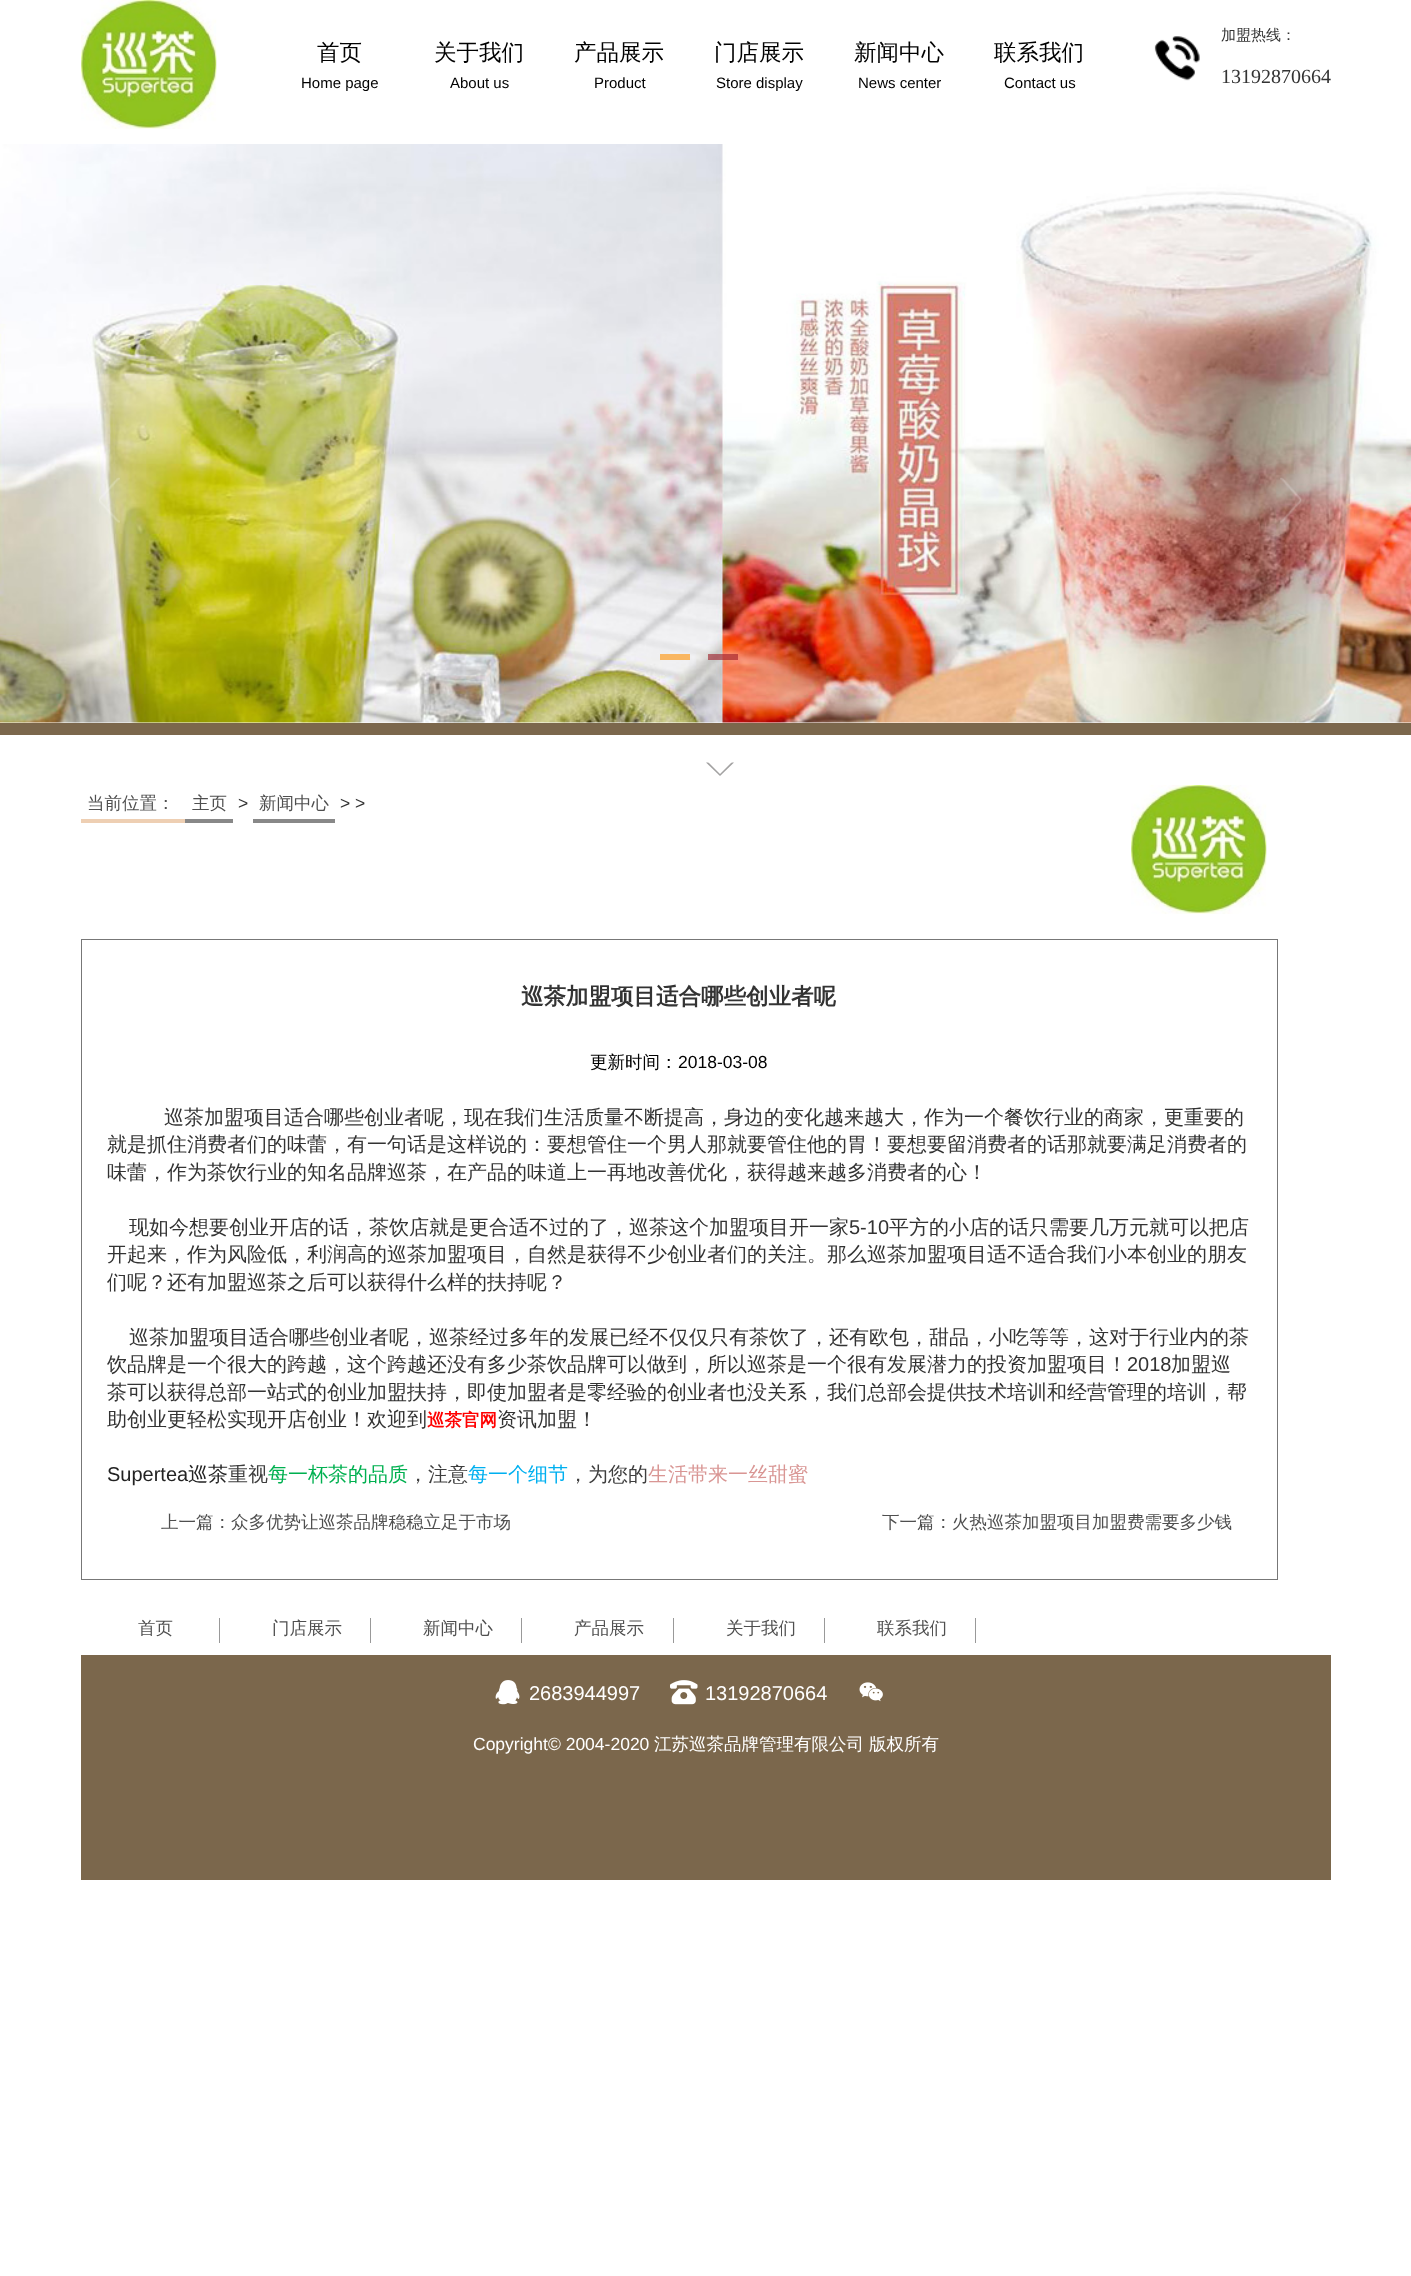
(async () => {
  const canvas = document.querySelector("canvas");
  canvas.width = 1411;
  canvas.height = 2276;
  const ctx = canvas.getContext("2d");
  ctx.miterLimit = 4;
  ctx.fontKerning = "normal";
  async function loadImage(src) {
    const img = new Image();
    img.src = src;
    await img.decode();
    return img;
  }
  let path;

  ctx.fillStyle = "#ffffff";
  ctx.fillRect(0, 0, 1411, 2276);
  ctx.drawImage(await loadImage("img/1.png"), 81, 0, 136, 129);
  ctx.drawImage(await loadImage("img/2.png"), 1154, 36, 46, 45);
  ctx.fillStyle = "#7b674c";
  ctx.fillRect(0, 723, 1411, 12);
  ctx.drawImage(await loadImage("img/3.png"), 0, 144, 1411, 579);
  ctx.drawImage(await loadImage("img/4.png"), 99, 477, 21, 46);
  ctx.drawImage(await loadImage("img/5.png"), 1280, 477, 22, 46);
  ctx.fillStyle = "rgba(255, 144, 0, 0.6)";
  ctx.fillRect(660, 654, 30, 6);
  ctx.fillStyle = "rgba(156, 27, 39, 0.6)";
  ctx.fillRect(708, 654, 30, 6);
  ctx.fillStyle = "#a3a2a2";
  path = new Path2D("M706 762.5H734L720 776Z");
  ctx.fill(path);
  ctx.fillStyle = "#ffffff";
  path = new Path2D("M706 760H734L720 774Z");
  ctx.fill(path);
  for (const [x, y, w, h, color] of [
    [81, 819, 104, 4, "#eecfb3"],
    [185, 819, 48, 4, "#888888"],
    [253, 819, 82, 4, "#888888"],
  ]) {
    ctx.fillStyle = color;
    ctx.fillRect(x, y, w, h);
  }
  ctx.drawImage(await loadImage("img/6.png"), 1131, 785, 136, 129);
  ctx.strokeStyle = "#777777";
  ctx.strokeRect(81.5, 939.5, 1196, 640);
  for (const [x, y, w, h, color] of [
    [219, 1618, 1, 25, "#999999"],
    [370, 1618, 1, 25, "#999999"],
    [521, 1618, 1, 25, "#999999"],
    [673, 1618, 1, 25, "#999999"],
    [824, 1618, 1, 25, "#999999"],
    [975, 1618, 1, 25, "#999999"],
    [81, 1655, 1250, 225, "#7b674c"],
  ]) {
    ctx.fillStyle = color;
    ctx.fillRect(x, y, w, h);
  }
  ctx.drawImage(await loadImage("img/7.png"), 495, 1680, 25, 25);
  ctx.drawImage(await loadImage("img/8.png"), 670, 1680, 28, 25);
  ctx.drawImage(await loadImage("img/9.png"), 859, 1682, 24, 20);
  ctx.font = "500 22.5px WenQuanYi Zen Hei";
  ctx.fillStyle = "#010101";
  ctx.fillText("首页", 317, 60);
  ctx.font = "15px Liberation Sans";
  ctx.fillText("Home page", 301, 88);
  ctx.font = "500 22.5px WenQuanYi Zen Hei";
  ctx.fillText("关于我们", 434, 60);
  ctx.font = "15px Liberation Sans";
  ctx.fillText("About us", 450, 88);
  ctx.font = "500 22.5px WenQuanYi Zen Hei";
  ctx.fillText("产品展示", 574, 60);
  ctx.font = "15px Liberation Sans";
  ctx.fillText("Product", 594, 88);
  ctx.font = "500 22.5px WenQuanYi Zen Hei";
  ctx.fillText("门店展示", 714, 60);
  ctx.font = "15px Liberation Sans";
  ctx.fillText("Store display", 716, 88);
  ctx.font = "500 22.5px WenQuanYi Zen Hei";
  ctx.fillText("新闻中心", 854, 60);
  ctx.font = "15px Liberation Sans";
  ctx.fillText("News center", 858, 88);
  ctx.font = "500 22.5px WenQuanYi Zen Hei";
  ctx.fillText("联系我们", 994, 60);
  ctx.font = "15px Liberation Sans";
  ctx.fillText("Contact us", 1004, 88);
  ctx.font = "500 15px WenQuanYi Zen Hei";
  ctx.fillStyle = "#333333";
  ctx.fillText("加盟热线：", 1221, 40);
  ctx.font = "20px Liberation Serif";
  ctx.fillText("13192870664", 1221, 83);
  ctx.font = "500 17.5px WenQuanYi Zen Hei";
  ctx.fillStyle = "#4f4f4f";
  ctx.fillText("当前位置：", 87, 809);
  ctx.fillText("主页", 192, 809);
  ctx.font = "17.5px Liberation Sans";
  ctx.fillStyle = "#333333";
  ctx.fillText(">", 238, 809);
  ctx.font = "500 17.5px WenQuanYi Zen Hei";
  ctx.fillStyle = "#4f4f4f";
  ctx.fillText("新闻中心", 259, 809);
  ctx.font = "17.5px Liberation Sans";
  ctx.fillStyle = "#333333";
  ctx.fillText("> >", 340, 809);
  ctx.font = "bold 22.5px WenQuanYi Zen Hei";
  ctx.fillText("巡茶加盟项目适合哪些创业者呢", 521, 1004);
  ctx.font = "500 17.5px WenQuanYi Zen Hei";
  ctx.fillStyle = "#010101";
  ctx.fillText("更新时间：", 590, 1068);
  ctx.font = "17.5px Liberation Sans";
  ctx.fillText("2018-03-08", 678, 1068);
  ctx.font = "500 20px WenQuanYi Zen Hei";
  ctx.fillStyle = "#333333";
  for (const [text, x, y] of [
    ["巡茶加盟项目适合哪些创业者呢，现在我们生活质量不断提高，身边的变化越来越大，作为一个餐饮行业的商家，更重要的", 164, 1124],
    ["就是抓住消费者们的味蕾，有一句话是这样说的：要想管住一个男人那就要管住他的胃！要想要留消费者的话那就要满足消费者的", 107, 1151],
    ["味蕾，作为茶饮行业的知名品牌巡茶，在产品的味道上一再地改善优化，获得越来越多消费者的心！", 107, 1179],
    ["现如今想要创业开店的话，茶饮店就是更合适不过的了，巡茶这个加盟项目开一家", 129, 1234],
  ]) {
    ctx.fillText(text, x, y);
  }
  ctx.font = "20px Liberation Sans";
  ctx.fillText("5-10", 849, 1234);
  ctx.font = "500 20px WenQuanYi Zen Hei";
  for (const [text, x, y] of [
    ["平方的小店的话只需要几万元就可以把店", 889, 1234],
    ["开起来，作为风险低，利润高的巡茶加盟项目，自然是获得不少创业者们的关注。那么巡茶加盟项目适不适合我们小本创业的朋友", 107, 1261],
    ["们呢？还有加盟巡茶之后可以获得什么样的扶持呢？", 107, 1289],
    ["巡茶加盟项目适合哪些创业者呢，巡茶经过多年的发展已经不仅仅只有茶饮了，还有欧包，甜品，小吃等等，这对于行业内的茶", 129, 1344],
    ["饮品牌是一个很大的跨越，这个跨越还没有多少茶饮品牌可以做到，所以巡茶是一个很有发展潜力的投资加盟项目！", 107, 1371],
  ]) {
    ctx.fillText(text, x, y);
  }
  ctx.font = "20px Liberation Sans";
  ctx.fillText("2018", 1127, 1371);
  ctx.font = "500 20px WenQuanYi Zen Hei";
  for (const [text, x, y] of [
    ["加盟巡", 1171, 1371],
    ["茶可以获得总部一站式的创业加盟扶持，即使加盟者是零经验的创业者也没关系，我们总部会提供技术培训和经营管理的培训，帮", 107, 1399],
    ["助创业更轻松实现开店创业！欢迎到", 107, 1426],
  ]) {
    ctx.fillText(text, x, y);
  }
  ctx.font = "bold 17.5px WenQuanYi Zen Hei";
  ctx.fillStyle = "#ff0000";
  ctx.fillText("巡茶官网", 427, 1426);
  ctx.font = "500 20px WenQuanYi Zen Hei";
  ctx.fillStyle = "#333333";
  ctx.fillText("资讯加盟！", 497, 1426);
  ctx.font = "20px Liberation Sans";
  ctx.fillStyle = "#222222";
  ctx.fillText("Supertea", 107, 1481);
  ctx.font = "500 20px WenQuanYi Zen Hei";
  ctx.fillText("巡茶", 188, 1481);
  ctx.fillStyle = "#3e3e3e";
  ctx.fillText("重视", 228, 1481);
  ctx.fillStyle = "#00b050";
  ctx.fillText("每一杯茶的品质", 268, 1481);
  ctx.fillStyle = "#3e3e3e";
  ctx.fillText("，注意", 408, 1481);
  ctx.fillStyle = "#00b0f0";
  ctx.fillText("每一个细节", 468, 1481);
  ctx.fillStyle = "#3e3e3e";
  ctx.fillText("，为您的", 568, 1481);
  ctx.fillStyle = "#d99694";
  ctx.fillText("生活带来一丝甜蜜", 648, 1481);
  ctx.font = "500 17.5px WenQuanYi Zen Hei";
  ctx.fillStyle = "#4f4f4f";
  for (const [text, x, y] of [
    ["上一篇：众多优势让巡茶品牌稳稳立足于市场", 161, 1528],
    ["下一篇：火热巡茶加盟项目加盟费需要多少钱", 882, 1528],
    ["首页", 138, 1634],
    ["门店展示", 272, 1634],
    ["新闻中心", 423, 1634],
    ["产品展示", 574, 1634],
    ["关于我们", 726, 1634],
    ["联系我们", 877, 1634],
  ]) {
    ctx.fillText(text, x, y);
  }
  ctx.font = "20px Liberation Sans";
  ctx.fillStyle = "#ffffff";
  ctx.fillText("2683944997", 529, 1700);
  ctx.fillText("13192870664", 705, 1700);
  ctx.font = "17.5px Liberation Sans";
  ctx.fillText("Copyright© 2004-2020", 473, 1750);
  ctx.font = "500 17.5px WenQuanYi Zen Hei";
  ctx.fillText("江苏巡茶品牌管理有限公司", 654, 1750);
  ctx.fillText("版权所有", 869, 1750);
})();
